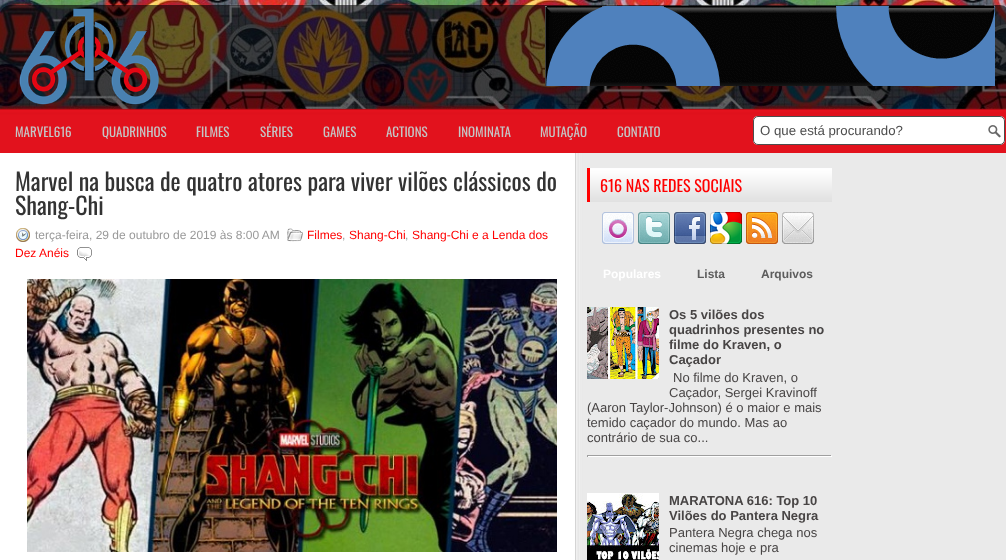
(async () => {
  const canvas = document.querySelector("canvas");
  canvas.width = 1006;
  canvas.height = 560;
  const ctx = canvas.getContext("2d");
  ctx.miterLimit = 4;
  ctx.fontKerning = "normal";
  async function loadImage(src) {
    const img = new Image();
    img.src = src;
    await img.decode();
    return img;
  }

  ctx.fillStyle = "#ffffff";
  ctx.fillRect(0, 0, 1006, 560);
  ctx.drawImage(await loadImage("img/1.png"), 0, 0, 1006, 110);
  ctx.drawImage(await loadImage("img/2.png"), 0, 5, 1006, 148);
  ctx.drawImage(await loadImage("img/3.png"), 19, 8, 140, 97);
  ctx.drawImage(await loadImage("img/4.png"), 545, 6, 450, 80);
  ctx.beginPath();
  ctx.roundRect(753, 116, 252, 29, 5);
  ctx.fill();
  ctx.drawImage(await loadImage("img/5.png"), 988, 125, 13, 13);
  ctx.beginPath();
  ctx.roundRect(753.5, 116.5, 251, 28, 4.5);
  ctx.strokeStyle = "#4d4d4d";
  ctx.stroke();
  ctx.drawImage(await loadImage("img/6.png"), 575, 153, 431, 407);
  ctx.drawImage(await loadImage("img/7.png"), 16, 228, 14, 14);
  ctx.drawImage(await loadImage("img/8.png"), 287, 228, 16, 14);
  ctx.drawImage(await loadImage("img/9.png"), 77, 247, 15, 14);
  ctx.drawImage(await loadImage("img/10.png"), 27, 279, 530, 273);
  ctx.drawImage(await loadImage("img/11.png"), 590, 168, 242, 34);
  ctx.fillStyle = "#ff0000";
  ctx.fillRect(587, 168, 3, 34);
  ctx.drawImage(await loadImage("img/12.png"), 602, 212, 32, 32);
  ctx.drawImage(await loadImage("img/13.png"), 638, 212, 32, 32);
  ctx.drawImage(await loadImage("img/14.png"), 674, 212, 32, 32);
  ctx.drawImage(await loadImage("img/15.png"), 710, 212, 32, 32);
  ctx.drawImage(await loadImage("img/16.png"), 746, 212, 32, 32);
  ctx.drawImage(await loadImage("img/17.png"), 782, 212, 32, 32);
  ctx.drawImage(await loadImage("img/18.png"), 587, 307, 72, 72);
  for (const [x, y, w, h, color] of [
    [587, 455, 245, 1, "#9f9f9f"],
    [831, 455, 1, 2, "#eeeeee"],
    [587, 456, 245, 1, "#ffffff"],
    [587, 455, 1, 2, "#9f9f9f"],
  ]) {
    ctx.fillStyle = color;
    ctx.fillRect(x, y, w, h);
  }
  ctx.drawImage(await loadImage("img/19.png"), 587, 493, 72, 67);
  ctx.font = "13px Oswald";
  ctx.fillStyle = "#c5c5c5";
  for (const [text, x, y] of [
    ["MARVEL616", 15, 137],
    ["QUADRINHOS", 102, 137],
    ["FILMES", 196, 137],
    ["SÉRIES", 260, 137],
    ["GAMES", 323, 137],
    ["ACTIONS", 386, 137],
    ["INOMINATA", 458, 137],
    ["MUTAÇÃO", 540, 137],
    ["CONTATO", 617, 137],
  ]) {
    ctx.fillText(text, x, y);
  }
  ctx.font = "13.25px Liberation Sans";
  ctx.fillStyle = "#4d4d4d";
  ctx.fillText("O que está procurando?", 760, 135);
  ctx.font = "24px Oswald";
  ctx.fillStyle = "#333333";
  ctx.fillText("Marvel na busca de quatro atores para viver vilões clássicos do", 15, 191);
  ctx.fillText("Shang-Chi", 15, 215);
  ctx.font = "12px Liberation Sans";
  ctx.fillStyle = "#999999";
  ctx.fillText("terça-feira, 29 de outubro de 2019 às 8:00 AM", 35, 239);
  ctx.fillStyle = "#ff0000";
  ctx.fillText("Filmes", 307, 239);
  ctx.fillStyle = "#999999";
  ctx.fillText(",", 342, 239);
  ctx.fillStyle = "#ff0000";
  ctx.fillText("Shang-Chi", 349, 239);
  ctx.fillStyle = "#999999";
  ctx.fillText(",", 405, 239);
  ctx.fillStyle = "#ff0000";
  ctx.fillText("Shang-Chi e a Lenda dos", 412, 239);
  ctx.fillText("Dez Anéis", 15, 257);
  ctx.font = "16px Oswald";
  ctx.fillText("616 NAS REDES SOCIAIS", 600, 192);
  ctx.font = "bold 12px Liberation Sans";
  ctx.fillStyle = "#ffffff";
  ctx.fillText("Populares", 603, 278);
  ctx.fillStyle = "#5d5d5d";
  ctx.fillText("Lista", 697, 278);
  ctx.fillText("Arquivos", 761, 278);
  ctx.font = "bold 13px Liberation Sans";
  ctx.fillStyle = "#484545";
  for (const [text, x, y] of [
    ["Os 5 vilões dos", 669, 319],
    ["quadrinhos presentes no", 669, 334],
    ["filme do Kraven, o", 669, 349],
    ["Caçador", 669, 364],
  ]) {
    ctx.fillText(text, x, y);
  }
  ctx.font = "13px Liberation Sans";
  for (const [text, x, y] of [
    ["No filme do Kraven, o", 673, 382],
    ["Caçador, Sergei Kravinoff", 669, 397],
    ["(Aaron Taylor-Johnson) é o maior e mais", 587, 412],
    ["temido caçador do mundo. Mas ao", 587, 427],
    ["contrário de sua co...", 587, 442],
  ]) {
    ctx.fillText(text, x, y);
  }
  ctx.font = "bold 13px Liberation Sans";
  ctx.fillText("MARATONA 616: Top 10", 669, 505);
  ctx.fillText("Vilões do Pantera Negra", 669, 520);
  ctx.font = "13px Liberation Sans";
  ctx.fillText("Pantera Negra chega nos", 669, 537);
  ctx.fillText("cinemas hoje e pra", 669, 552);
})();
